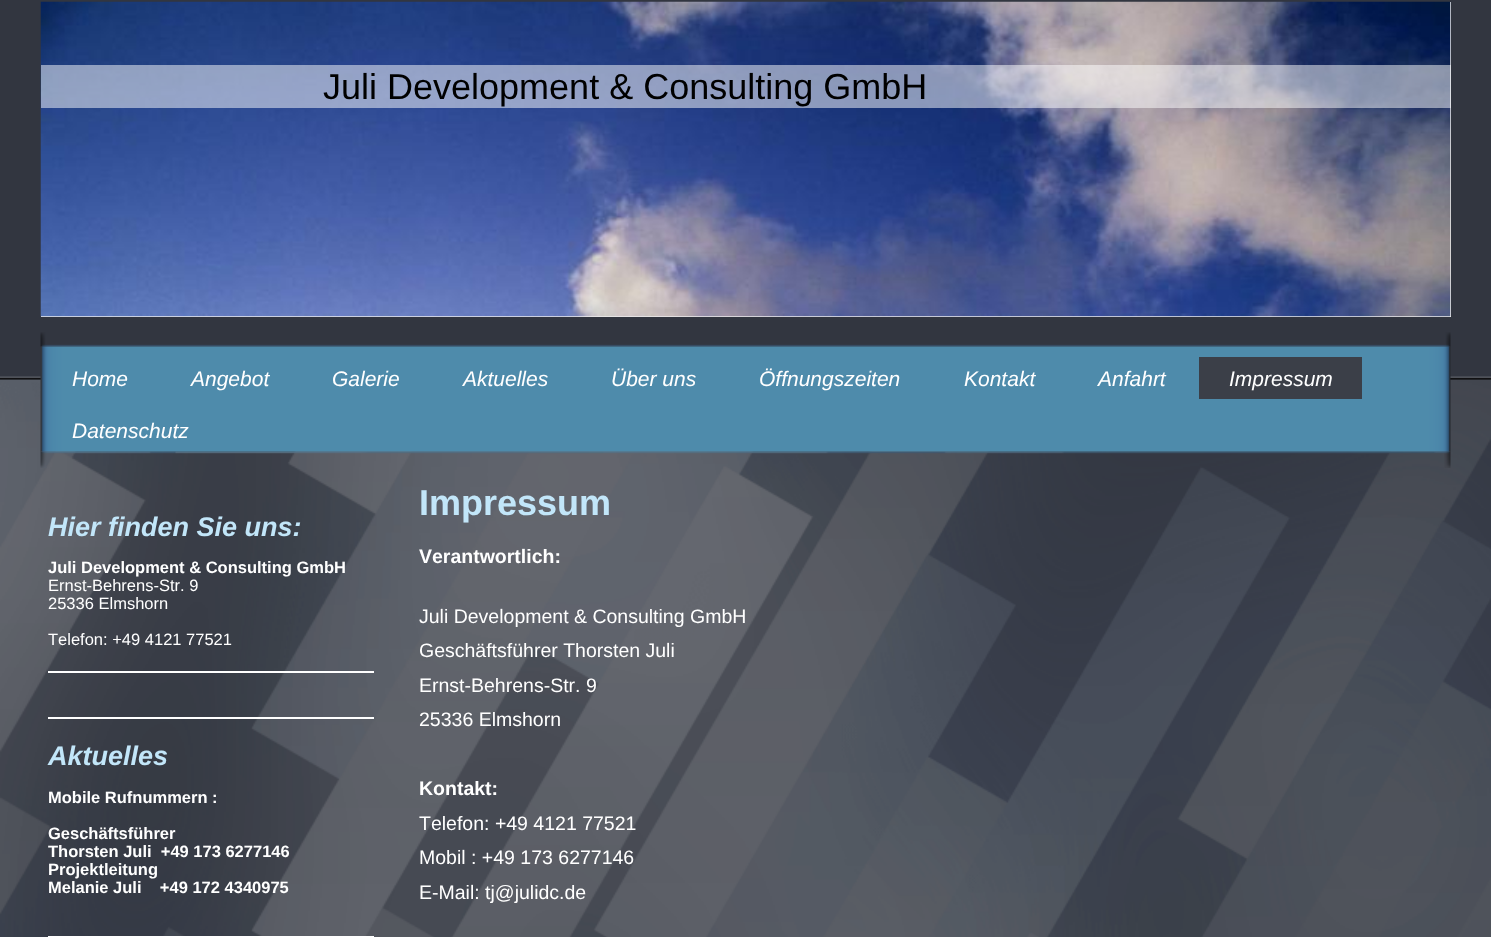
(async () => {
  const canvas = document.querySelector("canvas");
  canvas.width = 1491;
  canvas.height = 937;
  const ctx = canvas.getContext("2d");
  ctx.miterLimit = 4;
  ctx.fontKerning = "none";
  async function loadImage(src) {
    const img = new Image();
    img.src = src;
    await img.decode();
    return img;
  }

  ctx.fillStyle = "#323640";
  ctx.fillRect(0, 0, 1491, 937);
  ctx.drawImage(await loadImage("img/1.png"), 0, 376, 1491, 561);
  ctx.fillStyle = "#eeeeee";
  ctx.fillRect(41, 2, 1410, 315);
  ctx.drawImage(await loadImage("img/2.png"), 40, 1, 1411, 316);
  ctx.fillStyle = "rgba(255, 255, 255, 0.5)";
  ctx.fillRect(41, 65, 1410, 43);
  ctx.drawImage(await loadImage("img/3.png"), 40, 332, 1411, 15);
  ctx.drawImage(await loadImage("img/5.png"), 40, 451, 1411, 17);
  ctx.drawImage(await loadImage("img/4.png"), 40, 346, 1411, 106);
  for (const [x, y, w, h, color] of [
    [1199, 357, 163, 42, "#3b3f48"],
    [48, 671, 326, 2, "#ffffff"],
    [48, 717, 326, 2, "#ffffff"],
    [48, 936, 326, 1, "#ffffff"],
  ]) {
    ctx.fillStyle = color;
    ctx.fillRect(x, y, w, h);
  }
  ctx.font = "36px Liberation Sans";
  ctx.fillStyle = "#000000";
  ctx.fillText("Juli Development & Consulting GmbH", 323, 99);
  ctx.font = "italic 21px Liberation Sans";
  ctx.fillStyle = "#ffffff";
  for (const [text, x, y] of [
    ["Home", 72, 386],
    ["Angebot", 191, 386],
    ["Galerie", 332, 386],
    ["Aktuelles", 463, 386],
    ["Über uns", 611, 386],
    ["Öffnungszeiten", 759, 386],
    ["Kontakt", 964, 386],
    ["Anfahrt", 1098, 386],
    ["Impressum", 1229, 386],
    ["Datenschutz", 72, 438],
  ]) {
    ctx.fillText(text, x, y);
  }
  ctx.font = "italic bold 27px Liberation Sans";
  ctx.fillStyle = "#c2e6f9";
  ctx.fillText("Hier finden Sie uns:", 48, 536);
  ctx.font = "bold 16.5px Liberation Sans";
  ctx.fillStyle = "#ffffff";
  ctx.fillText("Juli Development & Consulting GmbH", 48, 573);
  ctx.font = "16.5px Liberation Sans";
  for (const [text, x, y] of [
    ["Ernst-Behrens-Str. 9", 48, 591],
    ["25336 Elmshorn", 48, 609],
    ["Telefon: +49 4121 77521", 48, 645],
  ]) {
    ctx.fillText(text, x, y);
  }
  ctx.font = "italic bold 27px Liberation Sans";
  ctx.fillStyle = "#c2e6f9";
  ctx.fillText("Aktuelles", 48, 765);
  ctx.font = "bold 16.5px Liberation Sans";
  ctx.fillStyle = "#ffffff";
  for (const [text, x, y] of [
    ["Mobile Rufnummern :", 48, 803],
    ["Geschäftsführer", 48, 839],
    ["Thorsten Juli  +49 173 6277146", 48, 857],
    ["Projektleitung", 48, 875],
    ["Melanie Juli    +49 172 4340975", 48, 893],
  ]) {
    ctx.fillText(text, x, y);
  }
  ctx.font = "bold 36px Liberation Sans";
  ctx.fillStyle = "#c2e6f9";
  ctx.fillText("Impressum", 419, 515);
  ctx.font = "bold 19.5px Liberation Sans";
  ctx.fillStyle = "#ffffff";
  ctx.fillText("Verantwortlich:", 419, 563);
  ctx.font = "19.5px Liberation Sans";
  for (const [text, x, y] of [
    ["Juli Development & Consulting GmbH", 419, 623],
    ["Geschäftsführer Thorsten Juli", 419, 657],
    ["Ernst-Behrens-Str. 9", 419, 692],
    ["25336 Elmshorn", 419, 726],
  ]) {
    ctx.fillText(text, x, y);
  }
  ctx.font = "bold 19.5px Liberation Sans";
  ctx.fillText("Kontakt:", 419, 795);
  ctx.font = "19.5px Liberation Sans";
  for (const [text, x, y] of [
    ["Telefon: +49 4121 77521", 419, 830],
    ["Mobil : +49 173 6277146", 419, 864],
    ["E-Mail: tj@julidc.de", 419, 899],
  ]) {
    ctx.fillText(text, x, y);
  }
})();
